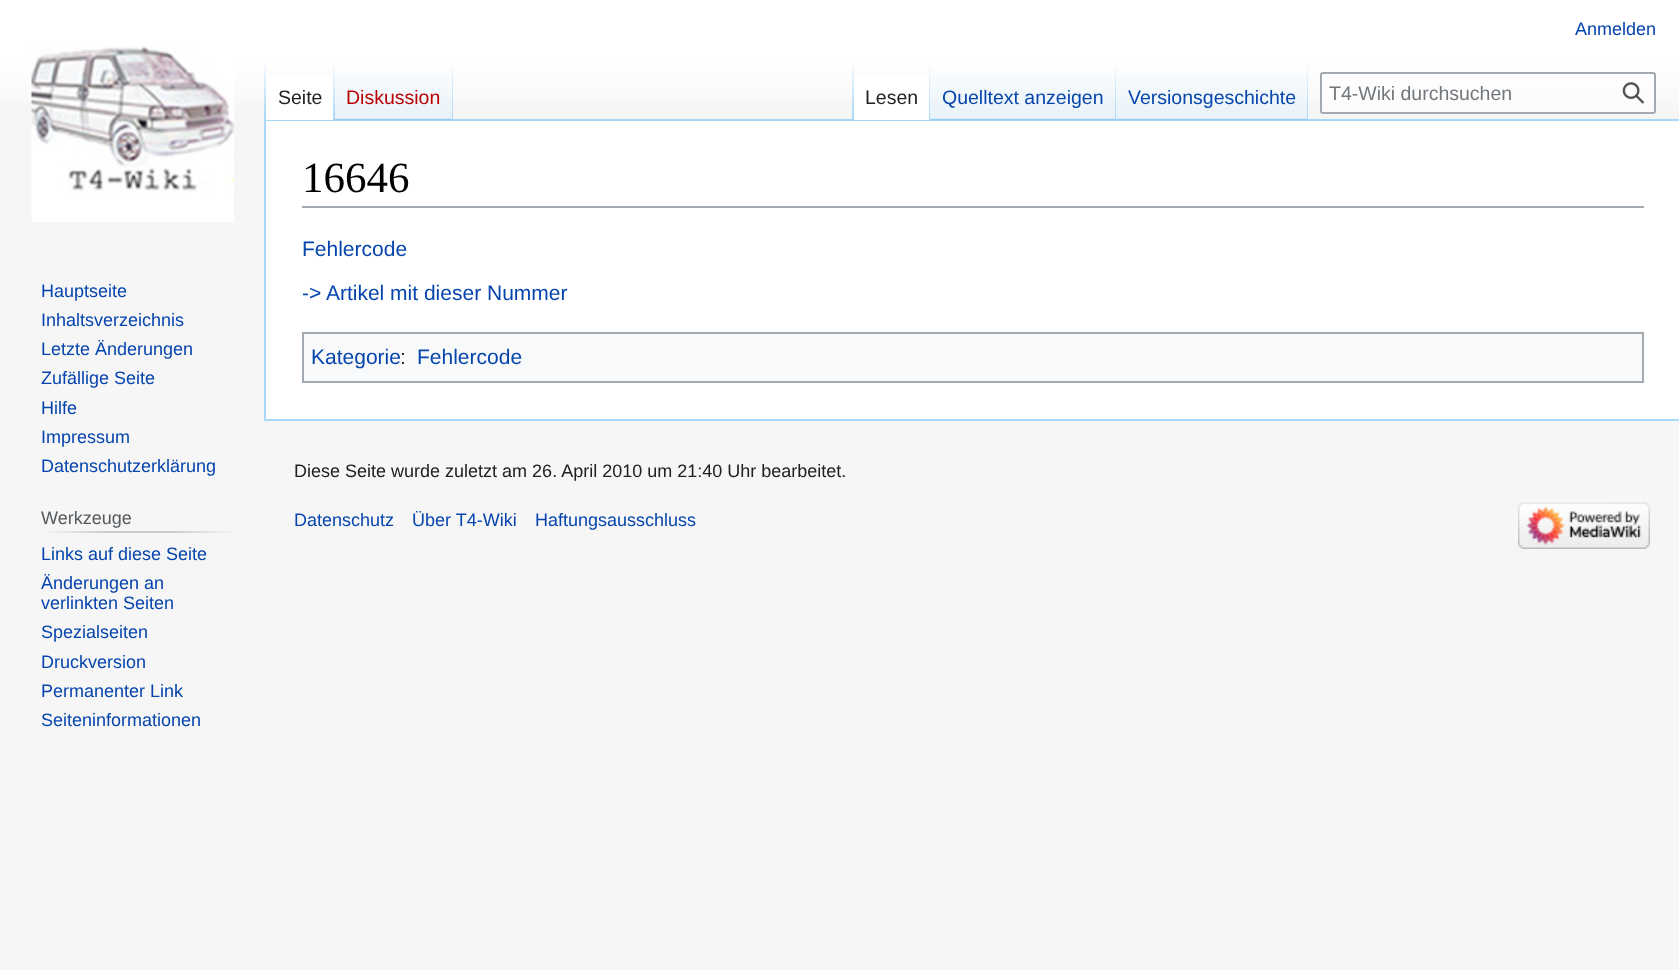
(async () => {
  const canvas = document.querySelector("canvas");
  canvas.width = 1679;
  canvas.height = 970;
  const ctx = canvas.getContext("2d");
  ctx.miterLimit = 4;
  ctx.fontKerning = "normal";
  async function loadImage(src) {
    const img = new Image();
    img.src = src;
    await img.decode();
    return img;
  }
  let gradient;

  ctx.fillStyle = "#f6f6f6";
  ctx.fillRect(0, 0, 1679, 970);
  gradient = ctx.createLinearGradient(840, 0, 840, 120);
  gradient.addColorStop(0.5, "#ffffff");
  gradient.addColorStop(1, "#f6f6f6");
  ctx.fillStyle = gradient;
  ctx.fillRect(0, 0, 1679, 103);
  for (const [x, y, w, h, color] of [
    [264, 119, 1415, 2, "#a7d7f9"],
    [264, 419, 1415, 2, "#a7d7f9"],
    [264, 119, 2, 301, "#a7d7f9"],
  ]) {
    ctx.fillStyle = color;
    ctx.fillRect(x, y, w, h);
  }
  gradient = ctx.createLinearGradient(265, 60, 265, 120);
  gradient.addColorStop(0, "rgba(167, 215, 249, 0)");
  gradient.addColorStop(1, "#a7d7f9");
  ctx.fillStyle = gradient;
  ctx.fillRect(264, 60, 2, 60);
  ctx.fillStyle = "#ffffff";
  ctx.fillRect(266, 77, 67, 43);
  gradient = ctx.createLinearGradient(334, 60, 334, 120);
  gradient.addColorStop(0, "#ffffff");
  gradient.addColorStop(1, "#a7d7f9");
  ctx.fillStyle = gradient;
  ctx.fillRect(333, 60, 2, 60);
  gradient = ctx.createLinearGradient(394, 120, 394, 60);
  gradient.addColorStop(0, "#77c1f6");
  gradient.addColorStop(0.03, "#e8f2f8");
  gradient.addColorStop(1, "#ffffff");
  ctx.fillStyle = gradient;
  ctx.fillRect(335, 69, 118, 51);
  gradient = ctx.createLinearGradient(452, 60, 452, 120);
  gradient.addColorStop(0, "rgba(167, 215, 249, 0)");
  gradient.addColorStop(1, "#a7d7f9");
  ctx.fillStyle = gradient;
  ctx.fillRect(452, 60, 1, 60);
  gradient = ctx.createLinearGradient(853, 60, 853, 120);
  gradient.addColorStop(0, "rgba(167, 215, 249, 0)");
  gradient.addColorStop(1, "#a7d7f9");
  ctx.fillStyle = gradient;
  ctx.fillRect(852, 60, 2, 60);
  ctx.fillStyle = "#ffffff";
  ctx.fillRect(854, 77, 75, 43);
  gradient = ctx.createLinearGradient(929, 60, 929, 120);
  gradient.addColorStop(0, "#ffffff");
  gradient.addColorStop(1, "#a7d7f9");
  ctx.fillStyle = gradient;
  ctx.fillRect(929, 60, 1, 60);
  gradient = ctx.createLinearGradient(1023, 120, 1023, 60);
  gradient.addColorStop(0, "#77c1f6");
  gradient.addColorStop(0.03, "#e8f2f8");
  gradient.addColorStop(1, "#ffffff");
  ctx.fillStyle = gradient;
  ctx.fillRect(930, 69, 186, 51);
  gradient = ctx.createLinearGradient(1115, 60, 1115, 120);
  gradient.addColorStop(0, "rgba(167, 215, 249, 0)");
  gradient.addColorStop(1, "#a7d7f9");
  ctx.fillStyle = gradient;
  ctx.fillRect(1115, 60, 1, 60);
  gradient = ctx.createLinearGradient(1212, 120, 1212, 60);
  gradient.addColorStop(0, "#77c1f6");
  gradient.addColorStop(0.03, "#e8f2f8");
  gradient.addColorStop(1, "#ffffff");
  ctx.fillStyle = gradient;
  ctx.fillRect(1116, 69, 192, 51);
  gradient = ctx.createLinearGradient(1307, 60, 1307, 120);
  gradient.addColorStop(0, "rgba(167, 215, 249, 0)");
  gradient.addColorStop(1, "#a7d7f9");
  ctx.fillStyle = gradient;
  ctx.fillRect(1307, 60, 1, 60);
  ctx.fillStyle = "rgba(255, 255, 255, 0.5)";
  ctx.beginPath();
  ctx.roundRect(1321, 73, 334, 40, 2);
  ctx.fill();
  ctx.strokeStyle = "#a2a9b1";
  ctx.lineWidth = 2;
  ctx.stroke();
  ctx.drawImage(await loadImage("img/1.png"), 1622, 82, 23, 22);
  ctx.drawImage(await loadImage("img/2.png"), 31, 46, 203, 176);
  gradient = ctx.createLinearGradient(41, 532, 237, 532);
  gradient.addColorStop(0, "#f6f6f6");
  gradient.addColorStop(0.33, "#c8ccd1");
  gradient.addColorStop(0.66, "#c8ccd1");
  gradient.addColorStop(1, "#f6f6f6");
  ctx.fillStyle = gradient;
  ctx.fillRect(41, 531, 196, 2);
  ctx.fillStyle = "#ffffff";
  ctx.fillRect(266, 121, 1413, 298);
  ctx.fillStyle = "#a2a9b1";
  ctx.fillRect(302, 206, 1342, 2);
  ctx.fillStyle = "#f8f9fa";
  ctx.beginPath();
  ctx.rect(303, 333, 1340, 49);
  ctx.fill();
  ctx.stroke();
  ctx.drawImage(await loadImage("img/3.png"), 1518, 502, 132, 47);
  ctx.font = "18px Liberation Sans";
  ctx.fillStyle = "#0645ad";
  ctx.fillText("Anmelden", 1575, 35);
  ctx.font = "19.5px Liberation Sans";
  ctx.fillStyle = "#202122";
  ctx.fillText("Seite", 278, 104);
  ctx.fillStyle = "#ba0000";
  ctx.fillText("Diskussion", 346, 104);
  ctx.fillStyle = "#202122";
  ctx.fillText("Lesen", 865, 104);
  ctx.fillStyle = "#0645ad";
  ctx.fillText("Quelltext anzeigen", 942, 104);
  ctx.fillText("Versionsgeschichte", 1128, 104);
  ctx.fillStyle = "#72777d";
  ctx.fillText("T4-Wiki durchsuchen", 1329, 100);
  ctx.font = "18px Liberation Sans";
  ctx.fillStyle = "#0645ad";
  for (const [text, x, y] of [
    ["Hauptseite", 41, 297],
    ["Inhaltsverzeichnis", 41, 326],
    ["Letzte Änderungen", 41, 355],
    ["Zufällige Seite", 41, 384],
    ["Hilfe", 41, 414],
    ["Impressum", 41, 443],
    ["Datenschutzerklärung", 41, 472],
  ]) {
    ctx.fillText(text, x, y);
  }
  ctx.fillStyle = "#54595d";
  ctx.fillText("Werkzeuge", 41, 524);
  ctx.fillStyle = "#0645ad";
  for (const [text, x, y] of [
    ["Links auf diese Seite", 41, 560],
    ["Änderungen an", 41, 589],
    ["verlinkten Seiten", 41, 609],
    ["Spezialseiten", 41, 638],
    ["Druckversion", 41, 668],
    ["Permanenter Link", 41, 697],
    ["Seiteninformationen", 41, 726],
  ]) {
    ctx.fillText(text, x, y);
  }
  ctx.font = "43px Liberation Serif";
  ctx.fillStyle = "#000000";
  ctx.fillText("16646", 302, 192);
  ctx.font = "21px Liberation Sans";
  ctx.fillStyle = "#0645ad";
  for (const [text, x, y] of [
    ["Fehlercode", 302, 256],
    ["-> Artikel mit dieser Nummer", 302, 300],
    ["Kategorie", 311, 364],
  ]) {
    ctx.fillText(text, x, y);
  }
  ctx.fillStyle = "#202122";
  ctx.fillText(":", 400, 364);
  ctx.fillStyle = "#0645ad";
  ctx.fillText("Fehlercode", 417, 364);
  ctx.font = "18px Liberation Sans";
  ctx.fillStyle = "#202122";
  ctx.fillText("Diese Seite wurde zuletzt am 26. April 2010 um 21:40 Uhr bearbeitet.", 294, 477);
  ctx.fillStyle = "#0645ad";
  for (const [text, x, y] of [
    ["Datenschutz", 294, 526],
    ["Über T4-Wiki", 412, 526],
    ["Haftungsausschluss", 535, 526],
  ]) {
    ctx.fillText(text, x, y);
  }
})();
